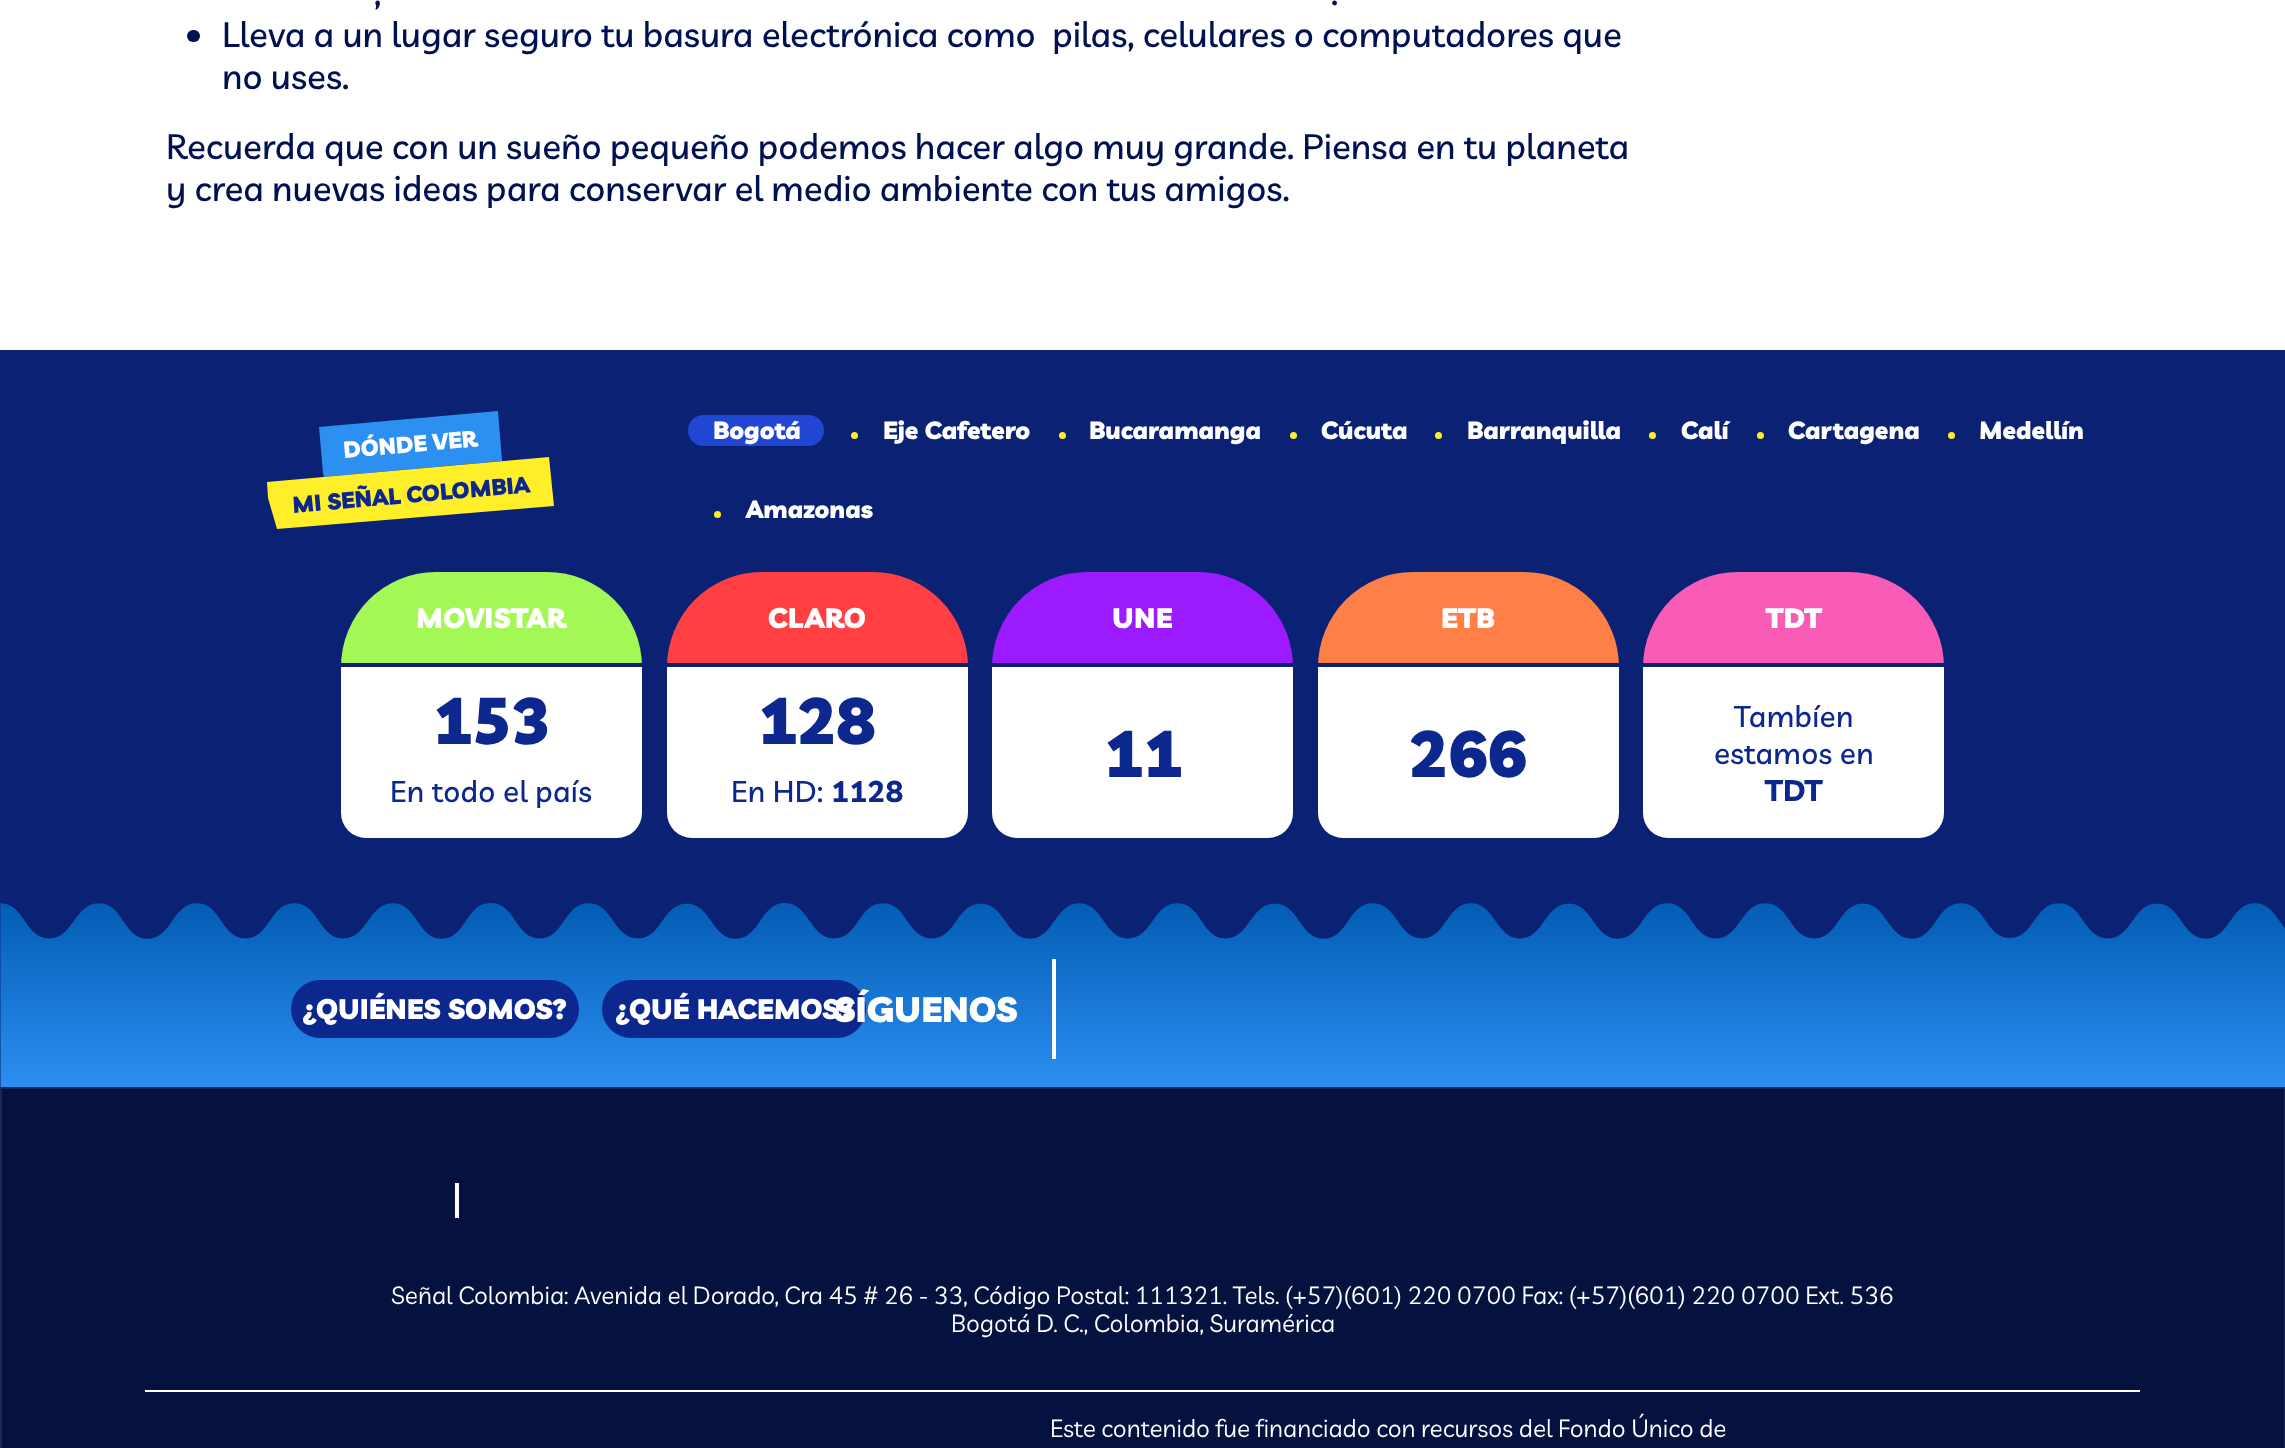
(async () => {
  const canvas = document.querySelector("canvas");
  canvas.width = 2285;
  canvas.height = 1448;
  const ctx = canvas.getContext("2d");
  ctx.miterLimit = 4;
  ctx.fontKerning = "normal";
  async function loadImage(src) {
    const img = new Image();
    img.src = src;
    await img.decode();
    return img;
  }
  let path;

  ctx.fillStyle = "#ffffff";
  ctx.fillRect(0, 0, 2285, 1448);
  ctx.fillStyle = "#001152";
  ctx.beginPath();
  ctx.roundRect(187, 30, 13, 12, 6);
  ctx.fill();
  ctx.fillStyle = "#0a2174";
  ctx.fillRect(0, 350, 2285, 737);
  ctx.fillStyle = "#2c8ff2";
  path = new Path2D("M324 477L502 461L498 411L319 427L323 473Z");
  ctx.fill(path);
  ctx.fillStyle = "#2046d3";
  ctx.beginPath();
  ctx.roundRect(688, 415, 136, 31, 15.5);
  ctx.fill();
  ctx.fillStyle = "#ffef29";
  ctx.beginPath();
  ctx.arc(854.5, 435.5, 3.5, 0, Math.PI * 2);
  ctx.fill();
  ctx.beginPath();
  ctx.arc(1062.5, 435.5, 3.5, 0, Math.PI * 2);
  ctx.fill();
  ctx.beginPath();
  ctx.arc(1293.5, 435.5, 3.5, 0, Math.PI * 2);
  ctx.fill();
  ctx.beginPath();
  ctx.arc(1438.5, 435.5, 3.5, 0, Math.PI * 2);
  ctx.fill();
  ctx.beginPath();
  ctx.arc(1652.5, 435.5, 3.5, 0, Math.PI * 2);
  ctx.fill();
  ctx.beginPath();
  ctx.arc(1760.5, 435.5, 3.5, 0, Math.PI * 2);
  ctx.fill();
  ctx.beginPath();
  ctx.arc(1951.5, 435.5, 3.5, 0, Math.PI * 2);
  ctx.fill();
  ctx.beginPath();
  ctx.arc(717.5, 514.5, 3.5, 0, Math.PI * 2);
  ctx.fill();
  ctx.fillStyle = "#a4f855";
  ctx.beginPath();
  ctx.roundRect(341, 572, 301, 95, [95, 95, 0, 0]);
  ctx.fill();
  ctx.fillStyle = "#0a2174";
  ctx.fillRect(341, 663, 301, 4);
  ctx.fillStyle = "#ffffff";
  ctx.beginPath();
  ctx.roundRect(341, 667, 301, 171, [0, 0, 25, 25]);
  ctx.fill();
  ctx.fillStyle = "#ff3f41";
  ctx.beginPath();
  ctx.roundRect(667, 572, 301, 95, [95, 95, 0, 0]);
  ctx.fill();
  ctx.fillStyle = "#0a2174";
  ctx.fillRect(667, 663, 301, 4);
  ctx.fillStyle = "#ffffff";
  ctx.beginPath();
  ctx.roundRect(667, 667, 301, 171, [0, 0, 25, 25]);
  ctx.fill();
  ctx.fillStyle = "#9c1aff";
  ctx.beginPath();
  ctx.roundRect(992, 572, 301, 95, [95, 95, 0, 0]);
  ctx.fill();
  ctx.fillStyle = "#0a2174";
  ctx.fillRect(992, 663, 301, 4);
  ctx.fillStyle = "#ffffff";
  ctx.beginPath();
  ctx.roundRect(992, 667, 301, 171, [0, 0, 25, 25]);
  ctx.fill();
  ctx.fillStyle = "#ff8046";
  ctx.beginPath();
  ctx.roundRect(1318, 572, 301, 95, [95, 95, 0, 0]);
  ctx.fill();
  ctx.fillStyle = "#0a2174";
  ctx.fillRect(1318, 663, 301, 4);
  ctx.fillStyle = "#ffffff";
  ctx.beginPath();
  ctx.roundRect(1318, 667, 301, 171, [0, 0, 25, 25]);
  ctx.fill();
  ctx.fillStyle = "#f85cb6";
  ctx.beginPath();
  ctx.roundRect(1643, 572, 301, 95, [95, 95, 0, 0]);
  ctx.fill();
  ctx.fillStyle = "#0a2174";
  ctx.fillRect(1643, 663, 301, 4);
  ctx.fillStyle = "#ffffff";
  ctx.beginPath();
  ctx.roundRect(1643, 667, 301, 171, [0, 0, 25, 25]);
  ctx.fill();
  ctx.drawImage(await loadImage("img/1.png"), 0, 903, 2285, 184);
  ctx.fillStyle = "#0c278d";
  ctx.beginPath();
  ctx.roundRect(291, 980, 288, 58, 29);
  ctx.fill();
  ctx.beginPath();
  ctx.roundRect(602, 980, 264, 58, 29);
  ctx.fill();
  ctx.fillStyle = "#ffffff";
  ctx.fillRect(1052, 959, 4, 100);
  ctx.fillStyle = "#05113e";
  ctx.beginPath();
  ctx.rect(1, 1088, 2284, 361);
  ctx.fill();
  ctx.strokeStyle = "#1e2951";
  ctx.lineWidth = 2;
  ctx.stroke();
  ctx.fillStyle = "#ffffff";
  ctx.fillRect(455, 1183, 4, 35);
  ctx.fillRect(145, 1390, 1995, 2);
  ctx.font = "500 35px Livvic";
  ctx.fillStyle = "#001152";
  for (const [text, x, y] of [
    [",", 374, 5],
    [".", 1331, 5],
    ["Lleva a un lugar seguro tu basura electrónica como  pilas, celulares o computadores que", 222, 47],
    ["no uses.", 222, 89],
    ["Recuerda que con un sueño pequeño podemos hacer algo muy grande. Piensa en tu planeta", 166, 159],
    ["y crea nuevas ideas para conservar el medio ambiente con tus amigos.", 166, 201],
  ]) {
    ctx.fillText(text, x, y);
  }
  ctx.font = "900 22.75px Livvic";
  ctx.fillStyle = "#ffffff";
  ctx.save();
  ctx.translate(344, 458);
  ctx.rotate(-5 * Math.PI / 180);
  ctx.fillText("DÓNDE VER", 0, 0);
  ctx.restore();
  ctx.fillStyle = "#ffef29";
  path = new Path2D("M268 498L267 482L549 457L554 506L277 529Z");
  ctx.fill(path);
  ctx.fillStyle = "#0c278d";
  ctx.save();
  ctx.translate(293, 513);
  ctx.rotate(-5 * Math.PI / 180);
  ctx.fillText("MI SEÑAL COLOMBIA", 0, 0);
  ctx.restore();
  ctx.font = "900 24.5px Livvic";
  ctx.fillStyle = "#ffffff";
  for (const [text, x, y] of [
    ["Bogotá", 713, 439],
    ["Eje Cafetero", 883, 439],
    ["Bucaramanga", 1089, 439],
    ["Cúcuta", 1321, 439],
    ["Barranquilla", 1467, 439],
    ["Calí", 1681, 439],
    ["Cartagena", 1788, 439],
    ["Medellín", 1979, 439],
    ["Amazonas", 746, 518],
  ]) {
    ctx.fillText(text, x, y);
  }
  ctx.letterSpacing = "0.3px";
  ctx.font = "900 28px Livvic";
  ctx.fillText("MOVISTAR", 416, 628);
  ctx.font = "900 65px Livvic";
  ctx.fillStyle = "#0c278d";
  ctx.fillText("153", 433, 744);
  ctx.font = "500 29.75px Livvic";
  ctx.fillText("En todo el país", 390, 802);
  ctx.font = "900 28px Livvic";
  ctx.fillStyle = "#ffffff";
  ctx.fillText("CLARO", 768, 628);
  ctx.font = "900 65px Livvic";
  ctx.fillStyle = "#0c278d";
  ctx.fillText("128", 758, 744);
  ctx.font = "500 29.75px Livvic";
  ctx.fillText("En HD:", 731, 802);
  ctx.font = "bold 29.75px Livvic";
  ctx.fillText("1128", 831, 802);
  ctx.font = "900 28px Livvic";
  ctx.fillStyle = "#ffffff";
  ctx.fillText("UNE", 1112, 628);
  ctx.font = "900 65px Livvic";
  ctx.fillStyle = "#0c278d";
  ctx.fillText("11", 1104, 777);
  ctx.font = "900 28px Livvic";
  ctx.fillStyle = "#ffffff";
  ctx.fillText("ETB", 1441, 628);
  ctx.font = "900 65px Livvic";
  ctx.fillStyle = "#0c278d";
  ctx.fillText("266", 1409, 777);
  ctx.font = "900 28px Livvic";
  ctx.fillStyle = "#ffffff";
  ctx.fillText("TDT", 1766, 628);
  ctx.font = "500 29.75px Livvic";
  ctx.fillStyle = "#0c278d";
  ctx.fillText("Tambíen", 1734, 727);
  ctx.fillText("estamos en", 1714, 764);
  ctx.font = "bold 29.75px Livvic";
  ctx.fillText("TDT", 1765, 801);
  ctx.letterSpacing = "0px";
  ctx.font = "900 28px Livvic";
  ctx.fillStyle = "#ffffff";
  ctx.fillText("¿QUIÉNES SOMOS?", 302, 1019);
  ctx.fillText("¿QUÉ HACEMOS?", 615, 1019);
  ctx.font = "900 35px Livvic";
  ctx.fillText("SÍGUENOS", 834, 1022);
  ctx.font = "24.5px Livvic";
  for (const [text, x, y] of [
    ["Señal Colombia: Avenida el Dorado, Cra 45 # 26 - 33, Código Postal: 111321. Tels. (+57)(601) 220 0700 Fax: (+57)(601) 220 0700 Ext. 536", 391, 1304],
    ["Bogotá D. C., Colombia, Suramérica", 951, 1332],
    ["Este contenido fue financiado con recursos del Fondo Único de", 1050, 1437],
  ]) {
    ctx.fillText(text, x, y);
  }
})();
